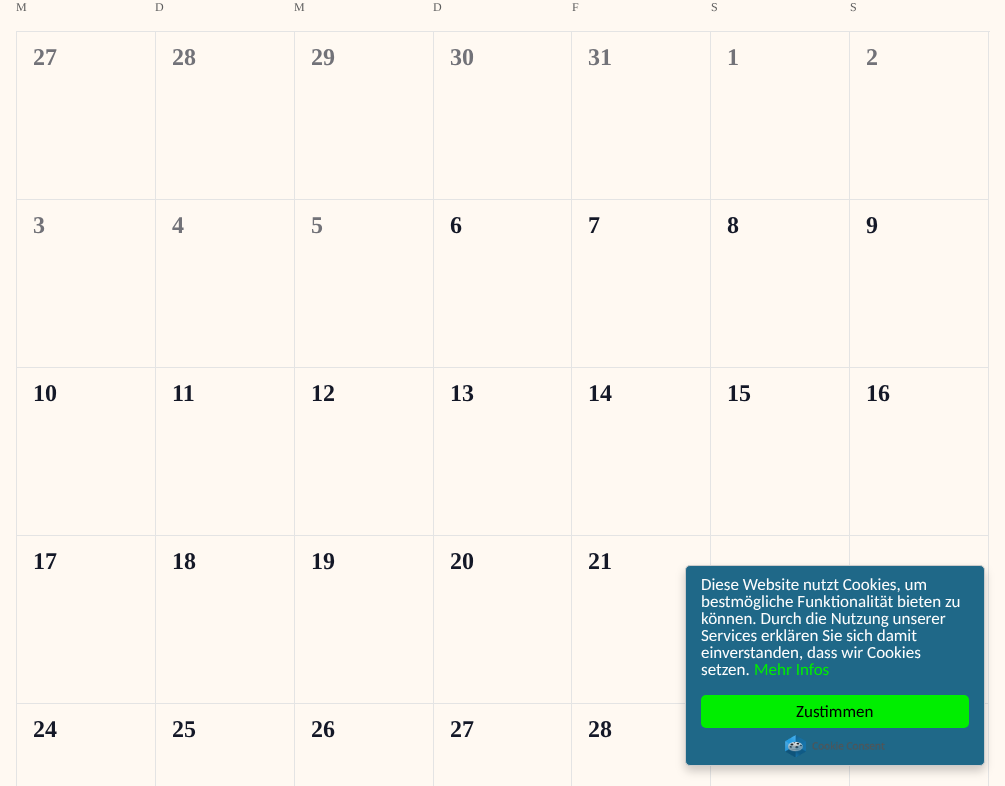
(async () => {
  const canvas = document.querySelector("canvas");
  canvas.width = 1005;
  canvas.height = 786;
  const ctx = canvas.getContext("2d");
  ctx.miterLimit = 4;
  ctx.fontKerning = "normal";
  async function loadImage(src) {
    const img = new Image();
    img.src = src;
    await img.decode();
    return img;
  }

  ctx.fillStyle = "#fff9f2";
  ctx.fillRect(0, 0, 1005, 786);
  for (const [x, y, w, h, color] of [
    [16, 31, 974, 1, "#e4e4e4"],
    [16, 32, 1, 754, "#e4e4e4"],
    [155, 32, 1, 754, "#e4e4e4"],
    [17, 199, 139, 1, "#e4e4e4"],
    [294, 32, 1, 754, "#e4e4e4"],
    [156, 199, 139, 1, "#e4e4e4"],
    [433, 32, 1, 754, "#e4e4e4"],
    [295, 199, 139, 1, "#e4e4e4"],
    [571, 32, 1, 754, "#e4e4e4"],
    [434, 199, 138, 1, "#e4e4e4"],
    [710, 32, 1, 533, "#e4e4e4"],
    [572, 199, 139, 1, "#e4e4e4"],
    [849, 32, 1, 533, "#e4e4e4"],
    [711, 199, 139, 1, "#e4e4e4"],
    [988, 32, 1, 754, "#e4e4e4"],
    [850, 199, 139, 1, "#e4e4e4"],
    [17, 367, 972, 1, "#e4e4e4"],
    [17, 535, 972, 1, "#e4e4e4"],
    [17, 703, 668, 1, "#e4e4e4"],
    [985, 703, 4, 1, "#e4e4e4"],
    [710, 766, 1, 20, "#e4e4e4"],
    [849, 766, 1, 20, "#e4e4e4"],
  ]) {
    ctx.fillStyle = color;
    ctx.fillRect(x, y, w, h);
  }
  ctx.fillStyle = "rgba(0, 0, 0, 0.2)";
  ctx.filter = "blur(5px)";
  ctx.beginPath();
  ctx.roundRect(685, 570, 300, 201, 5);
  ctx.fill();
  ctx.filter = "none";
  ctx.fillStyle = "#1f6888";
  ctx.beginPath();
  ctx.roundRect(685.5, 565.5, 299, 200, 4.5);
  ctx.fill();
  ctx.strokeStyle = "#cccccc";
  ctx.stroke();
  ctx.fillStyle = "#00ee00";
  ctx.beginPath();
  ctx.roundRect(701, 695, 268, 33, 5);
  ctx.fill();
  ctx.drawImage(await loadImage("img/1.png"), 785, 735, 100, 22);
  ctx.font = "12px Liberation Serif";
  ctx.fillStyle = "#5d5d5d";
  for (const [text, x, y] of [
    ["M", 16, 11],
    ["D", 155, 11],
    ["M", 294, 11],
    ["D", 433, 11],
    ["F", 572, 11],
    ["S", 711, 11],
    ["S", 850, 11],
  ]) {
    ctx.fillText(text, x, y);
  }
  ctx.font = "bold 24px Liberation Serif";
  ctx.fillStyle = "#727278";
  for (const [text, x, y] of [
    ["27", 33, 65],
    ["28", 172, 65],
    ["29", 311, 65],
    ["30", 450, 65],
    ["31", 588, 65],
    ["1", 727, 65],
    ["2", 866, 65],
    ["3", 33, 233],
    ["4", 172, 233],
    ["5", 311, 233],
  ]) {
    ctx.fillText(text, x, y);
  }
  ctx.fillStyle = "#141827";
  for (const [text, x, y] of [
    ["6", 450, 233],
    ["7", 588, 233],
    ["8", 727, 233],
    ["9", 866, 233],
    ["10", 33, 401],
    ["11", 172, 401],
    ["12", 311, 401],
    ["13", 450, 401],
    ["14", 588, 401],
    ["15", 727, 401],
    ["16", 866, 401],
    ["17", 33, 569],
    ["18", 172, 569],
    ["19", 311, 569],
    ["20", 450, 569],
    ["21", 588, 569],
    ["24", 33, 737],
    ["25", 172, 737],
    ["26", 311, 737],
    ["27", 450, 737],
    ["28", 588, 737],
  ]) {
    ctx.fillText(text, x, y);
  }
  ctx.font = "17px Carlito";
  ctx.fillStyle = "#fdfdfd";
  for (const [text, x, y] of [
    ["Diese Website nutzt Cookies, um", 701, 590],
    ["bestmögliche Funktionalität bieten zu", 701, 607],
    ["können. Durch die Nutzung unserer", 701, 624],
    ["Services erklären Sie sich damit", 701, 641],
    ["einverstanden, dass wir Cookies", 701, 658],
    ["setzen.", 701, 675],
  ]) {
    ctx.fillText(text, x, y);
  }
  ctx.fillStyle = "#00ee00";
  ctx.fillText("Mehr Infos", 754, 675);
  ctx.fillStyle = "#000000";
  ctx.fillText("Zustimmen", 796, 717);
})();
